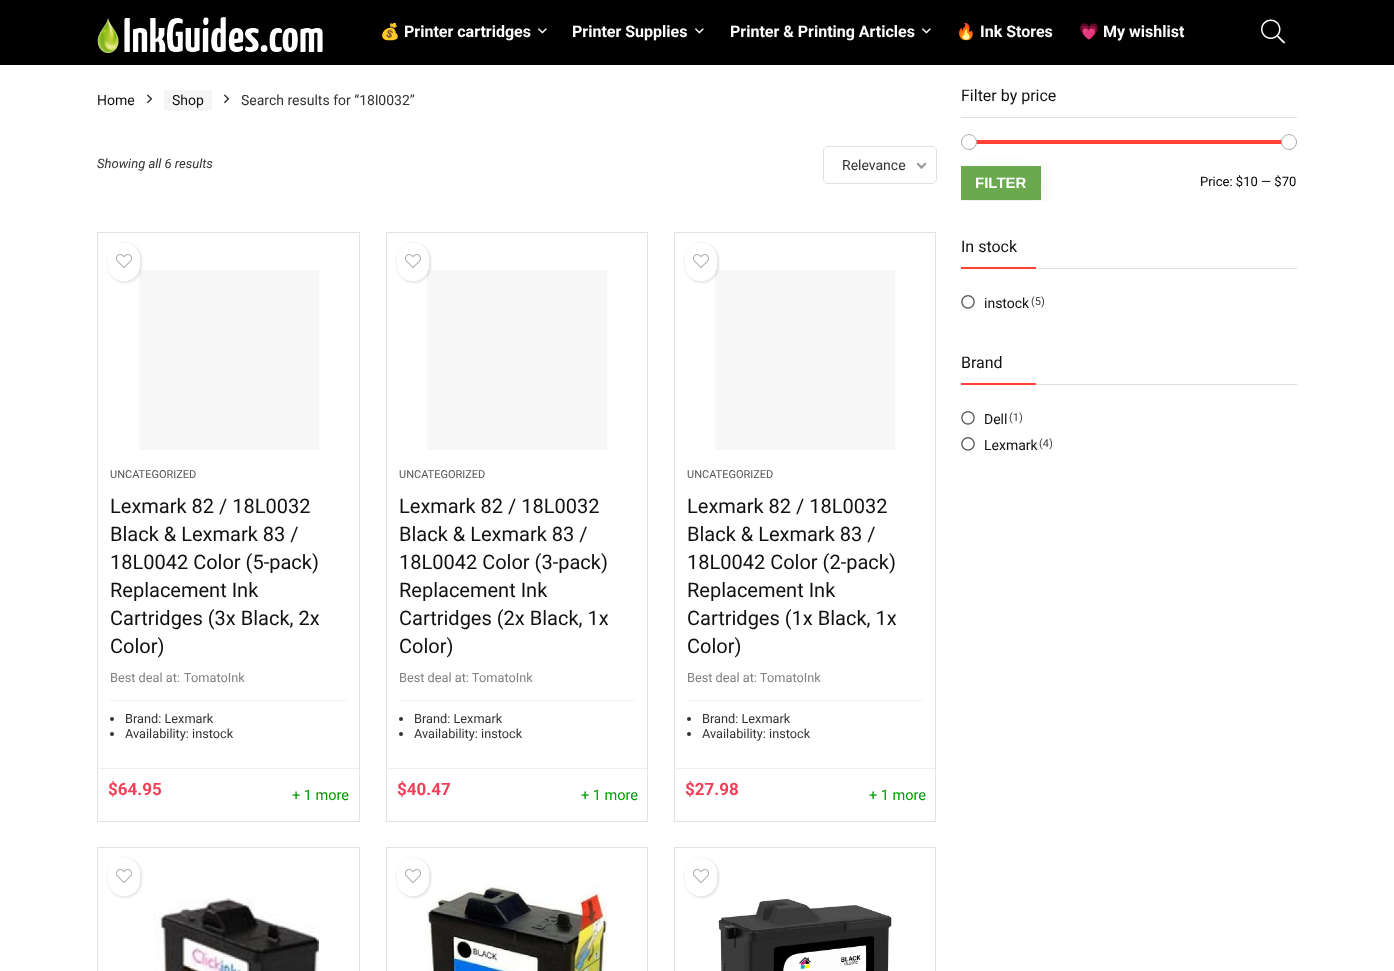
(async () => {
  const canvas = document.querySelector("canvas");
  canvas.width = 1394;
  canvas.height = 971;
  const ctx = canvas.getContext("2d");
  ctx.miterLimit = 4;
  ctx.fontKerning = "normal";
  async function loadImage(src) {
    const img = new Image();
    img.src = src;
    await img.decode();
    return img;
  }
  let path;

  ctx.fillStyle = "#ffffff";
  ctx.fillRect(0, 0, 1394, 971);
  ctx.fillStyle = "#000000";
  ctx.fillRect(0, 0, 1394, 65);
  ctx.drawImage(await loadImage("img/1.png"), 97, 17, 226, 36);
  ctx.drawImage(await loadImage("img/2.png"), 538, 28, 9, 6);
  ctx.drawImage(await loadImage("img/2.png"), 695, 28, 9, 6);
  ctx.drawImage(await loadImage("img/2.png"), 922, 28, 9, 6);
  ctx.drawImage(await loadImage("img/3.png"), 1261, 19, 24, 25);
  ctx.drawImage(await loadImage("img/4.png"), 147, 94, 6, 10);
  ctx.fillStyle = "#f5f5f5";
  ctx.beginPath();
  ctx.roundRect(164, 90, 48, 21, 3);
  ctx.fill();
  ctx.drawImage(await loadImage("img/4.png"), 224, 94, 6, 10);
  ctx.beginPath();
  ctx.roundRect(823.5, 146.5, 113, 37, 4.5);
  ctx.strokeStyle = "#e1e1e1";
  ctx.stroke();
  ctx.fillStyle = "#999999";
  path = new Path2D("M925 162.5L926.5 164L921.5 169L920 167.5Z");
  ctx.fill(path);
  path = new Path2D("M918 162.5L923 167.5L921.5 169L916.5 164Z");
  ctx.fill(path);
  ctx.strokeStyle = "#e2e2e2";
  ctx.strokeRect(97.5, 232.5, 262, 589);
  ctx.fillStyle = "#f7f7f7";
  ctx.fillRect(139, 270, 180, 180);
  ctx.save();
  path = new Path2D("M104 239H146V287H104ZM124 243C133 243 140 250 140 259V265C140 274 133 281 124 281C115 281 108 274 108 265V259C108 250 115 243 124 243Z");
  ctx.clip(path, "evenodd");
  ctx.fillStyle = "rgba(0, 0, 0, 0.1)";
  ctx.filter = "blur(1px)";
  ctx.beginPath();
  ctx.roundRect(108, 243, 34, 40, 17);
  ctx.fill();
  ctx.filter = "none";
  ctx.restore();
  ctx.fillStyle = "rgba(255, 255, 255, 0.78)";
  ctx.beginPath();
  ctx.roundRect(108, 243, 32, 38, 16);
  ctx.fill();
  ctx.drawImage(await loadImage("img/5.png"), 116, 254, 16, 14);
  ctx.fillStyle = "#f0f0f0";
  ctx.fillRect(110, 700, 237, 1);
  ctx.fillStyle = "#333333";
  ctx.beginPath();
  ctx.arc(112, 719, 2, 0, Math.PI * 2);
  ctx.fill();
  ctx.beginPath();
  ctx.arc(112, 734, 2, 0, Math.PI * 2);
  ctx.fill();
  ctx.fillStyle = "#f0f0f0";
  ctx.fillRect(98, 768, 261, 1);
  ctx.strokeRect(386.5, 232.5, 261, 589);
  ctx.fillStyle = "#f7f7f7";
  ctx.fillRect(427, 270, 180, 180);
  ctx.save();
  path = new Path2D("M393 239H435V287H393ZM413 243C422 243 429 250 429 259V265C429 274 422 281 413 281C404 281 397 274 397 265V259C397 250 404 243 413 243Z");
  ctx.clip(path, "evenodd");
  ctx.fillStyle = "rgba(0, 0, 0, 0.1)";
  ctx.filter = "blur(1px)";
  ctx.beginPath();
  ctx.roundRect(397, 243, 34, 40, 17);
  ctx.fill();
  ctx.filter = "none";
  ctx.restore();
  ctx.fillStyle = "rgba(255, 255, 255, 0.78)";
  ctx.beginPath();
  ctx.roundRect(397, 243, 32, 38, 16);
  ctx.fill();
  ctx.drawImage(await loadImage("img/5.png"), 405, 254, 16, 14);
  ctx.fillStyle = "#f0f0f0";
  ctx.fillRect(399, 700, 236, 1);
  ctx.fillStyle = "#333333";
  ctx.beginPath();
  ctx.arc(401, 719, 2, 0, Math.PI * 2);
  ctx.fill();
  ctx.beginPath();
  ctx.arc(401, 734, 2, 0, Math.PI * 2);
  ctx.fill();
  ctx.fillStyle = "#f0f0f0";
  ctx.fillRect(387, 768, 260, 1);
  ctx.strokeRect(674.5, 232.5, 261, 589);
  ctx.fillStyle = "#f7f7f7";
  ctx.fillRect(715, 270, 180, 180);
  ctx.save();
  path = new Path2D("M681 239H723V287H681ZM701 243C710 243 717 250 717 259V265C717 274 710 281 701 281C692 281 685 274 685 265V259C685 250 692 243 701 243Z");
  ctx.clip(path, "evenodd");
  ctx.fillStyle = "rgba(0, 0, 0, 0.1)";
  ctx.filter = "blur(1px)";
  ctx.beginPath();
  ctx.roundRect(685, 243, 34, 40, 17);
  ctx.fill();
  ctx.filter = "none";
  ctx.restore();
  ctx.fillStyle = "rgba(255, 255, 255, 0.78)";
  ctx.beginPath();
  ctx.roundRect(685, 243, 32, 38, 16);
  ctx.fill();
  ctx.drawImage(await loadImage("img/5.png"), 693, 254, 16, 14);
  ctx.fillStyle = "#f0f0f0";
  ctx.fillRect(687, 700, 236, 1);
  ctx.fillStyle = "#333333";
  ctx.beginPath();
  ctx.arc(689, 719, 2, 0, Math.PI * 2);
  ctx.fill();
  ctx.beginPath();
  ctx.arc(689, 734, 2, 0, Math.PI * 2);
  ctx.fill();
  ctx.fillStyle = "#f0f0f0";
  ctx.fillRect(675, 768, 260, 1);
  ctx.strokeRect(97.5, 847.5, 262, 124);
  ctx.save();
  path = new Path2D("M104 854H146V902H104ZM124 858C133 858 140 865 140 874V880C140 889 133 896 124 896C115 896 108 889 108 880V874C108 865 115 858 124 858Z");
  ctx.clip(path, "evenodd");
  ctx.fillStyle = "rgba(0, 0, 0, 0.1)";
  ctx.filter = "blur(1px)";
  ctx.beginPath();
  ctx.roundRect(108, 858, 34, 40, 17);
  ctx.fill();
  ctx.filter = "none";
  ctx.restore();
  ctx.fillStyle = "rgba(255, 255, 255, 0.78)";
  ctx.beginPath();
  ctx.roundRect(108, 858, 32, 38, 16);
  ctx.fill();
  ctx.drawImage(await loadImage("img/5.png"), 116, 869, 16, 14);
  ctx.drawImage(await loadImage("img/6.png"), 153, 896, 166, 75);
  ctx.strokeRect(386.5, 847.5, 261, 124);
  ctx.drawImage(await loadImage("img/7.png"), 427, 885, 180, 86);
  ctx.save();
  path = new Path2D("M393 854H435V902H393ZM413 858C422 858 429 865 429 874V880C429 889 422 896 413 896C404 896 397 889 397 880V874C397 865 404 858 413 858Z");
  ctx.clip(path, "evenodd");
  ctx.fillStyle = "rgba(0, 0, 0, 0.1)";
  ctx.filter = "blur(1px)";
  ctx.beginPath();
  ctx.roundRect(397, 858, 34, 40, 17);
  ctx.fill();
  ctx.filter = "none";
  ctx.restore();
  ctx.beginPath();
  ctx.roundRect(397, 858, 32, 38, 16);
  ctx.fill();
  ctx.drawImage(await loadImage("img/5.png"), 405, 869, 16, 14);
  ctx.strokeRect(674.5, 847.5, 261, 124);
  ctx.drawImage(await loadImage("img/8.png"), 718, 899, 174, 72);
  ctx.save();
  path = new Path2D("M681 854H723V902H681ZM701 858C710 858 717 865 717 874V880C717 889 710 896 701 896C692 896 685 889 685 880V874C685 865 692 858 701 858Z");
  ctx.clip(path, "evenodd");
  ctx.fillStyle = "rgba(0, 0, 0, 0.1)";
  ctx.filter = "blur(1px)";
  ctx.beginPath();
  ctx.roundRect(685, 858, 34, 40, 17);
  ctx.fill();
  ctx.filter = "none";
  ctx.restore();
  ctx.beginPath();
  ctx.roundRect(685, 858, 32, 38, 16);
  ctx.fill();
  ctx.drawImage(await loadImage("img/5.png"), 693, 869, 16, 14);
  ctx.fillStyle = "#dddddd";
  ctx.fillRect(961, 117, 336, 1);
  ctx.save();
  ctx.beginPath();
  ctx.rect(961, 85, 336, 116);
  ctx.clip();
  ctx.fillStyle = "rgba(106, 169, 78, 0.2)";
  ctx.filter = "blur(9.5px)";
  ctx.beginPath();
  ctx.rect(960, 172, 80, 34);
  ctx.fill();
  ctx.filter = "none";
  ctx.restore();
  ctx.fillStyle = "#ff4136";
  ctx.beginPath();
  ctx.roundRect(961, 140, 336, 4, 2);
  ctx.fill();
  ctx.fillStyle = "#ffffff";
  ctx.beginPath();
  ctx.arc(969, 142, 7.5, 0, Math.PI * 2);
  ctx.fill();
  ctx.strokeStyle = "#aeaeae";
  ctx.stroke();
  ctx.beginPath();
  ctx.arc(1289, 142, 7.5, 0, Math.PI * 2);
  ctx.fill();
  ctx.stroke();
  for (const [x, y, w, h, color] of [
    [961, 166, 80, 34, "#6aa94e"],
    [1036, 268, 261, 1, "#dddddd"],
    [961, 267, 75, 2, "#ff4136"],
  ]) {
    ctx.fillStyle = color;
    ctx.fillRect(x, y, w, h);
  }
  ctx.drawImage(await loadImage("img/9.png"), 961, 295, 14, 14);
  ctx.fillStyle = "#dddddd";
  ctx.fillRect(1036, 384, 261, 1);
  ctx.fillStyle = "#ff4136";
  ctx.fillRect(961, 383, 75, 2);
  ctx.drawImage(await loadImage("img/9.png"), 961, 411, 14, 14);
  ctx.drawImage(await loadImage("img/9.png"), 961, 437, 14, 14);
  ctx.font = "bold 16px Noto Color Emoji";
  ctx.fillStyle = "#ffffff";
  ctx.fillText("💰", 380, 37);
  ctx.font = "bold 16px Roboto";
  for (const [text, x, y] of [
    ["Printer cartridges", 404, 37],
    ["Printer Supplies", 572, 37],
    ["Printer & Printing Articles", 730, 37],
  ]) {
    ctx.fillText(text, x, y);
  }
  ctx.font = "bold 16px Noto Color Emoji";
  ctx.fillText("🔥", 956, 37);
  ctx.font = "bold 16px Roboto";
  ctx.fillText("Ink Stores", 980, 37);
  ctx.font = "bold 16px Noto Color Emoji";
  ctx.fillText("💗", 1079, 37);
  ctx.font = "bold 16px Roboto";
  ctx.fillText("My wishlist", 1103, 37);
  ctx.font = "14px Roboto";
  ctx.fillStyle = "#111111";
  ctx.fillText("Home", 97, 105);
  ctx.fillText("Shop", 172, 105);
  ctx.fillStyle = "#333333";
  ctx.fillText("Search results for “18l0032”", 241, 105);
  ctx.font = "italic 13px Roboto";
  ctx.fillText("Showing all 6 results", 97, 168);
  ctx.font = "14px Roboto";
  ctx.fillText("Relevance", 842, 170);
  ctx.font = "11px Roboto";
  ctx.fillStyle = "#555555";
  ctx.fillText("UNCATEGORIZED", 110, 478);
  ctx.font = "20px Roboto";
  ctx.fillStyle = "#111111";
  for (const [text, x, y] of [
    ["Lexmark 82 / 18L0032", 110, 513],
    ["Black & Lexmark 83 /", 110, 541],
    ["18L0042 Color (5-pack)", 110, 569],
    ["Replacement Ink", 110, 597],
    ["Cartridges (3x Black, 2x", 110, 625],
    ["Color)", 110, 653],
  ]) {
    ctx.fillText(text, x, y);
  }
  ctx.font = "12.75px Roboto";
  ctx.fillStyle = "#808080";
  ctx.fillText("Best deal at:", 110, 682);
  ctx.font = "12.75px Noto Sans";
  ctx.fillText("T", 184, 682);
  ctx.font = "12.75px Roboto";
  ctx.fillText("omatoInk", 191, 682);
  ctx.fillStyle = "#333333";
  ctx.fillText("Brand: Lexmark", 125, 723);
  ctx.fillText("Availability: instock", 125, 738);
  ctx.font = "bold 17px Roboto";
  ctx.fillStyle = "#f04057";
  ctx.fillText("$64.95", 108, 795);
  ctx.font = "14.5px Roboto";
  ctx.fillStyle = "#009700";
  ctx.fillText("+ 1 more", 292, 800);
  ctx.font = "11px Roboto";
  ctx.fillStyle = "#555555";
  ctx.fillText("UNCATEGORIZED", 399, 478);
  ctx.font = "20px Roboto";
  ctx.fillStyle = "#111111";
  for (const [text, x, y] of [
    ["Lexmark 82 / 18L0032", 399, 513],
    ["Black & Lexmark 83 /", 399, 541],
    ["18L0042 Color (3-pack)", 399, 569],
    ["Replacement Ink", 399, 597],
    ["Cartridges (2x Black, 1x", 399, 625],
    ["Color)", 399, 653],
  ]) {
    ctx.fillText(text, x, y);
  }
  ctx.font = "12.75px Roboto";
  ctx.fillStyle = "#808080";
  ctx.fillText("Best deal at:", 399, 682);
  ctx.font = "12.75px Noto Sans";
  ctx.fillText("T", 472, 682);
  ctx.font = "12.75px Roboto";
  ctx.fillText("omatoInk", 479, 682);
  ctx.fillStyle = "#333333";
  ctx.fillText("Brand: Lexmark", 414, 723);
  ctx.fillText("Availability: instock", 414, 738);
  ctx.font = "bold 17px Roboto";
  ctx.fillStyle = "#f04057";
  ctx.fillText("$40.47", 397, 795);
  ctx.font = "14.5px Roboto";
  ctx.fillStyle = "#009700";
  ctx.fillText("+ 1 more", 581, 800);
  ctx.font = "11px Roboto";
  ctx.fillStyle = "#555555";
  ctx.fillText("UNCATEGORIZED", 687, 478);
  ctx.font = "20px Roboto";
  ctx.fillStyle = "#111111";
  for (const [text, x, y] of [
    ["Lexmark 82 / 18L0032", 687, 513],
    ["Black & Lexmark 83 /", 687, 541],
    ["18L0042 Color (2-pack)", 687, 569],
    ["Replacement Ink", 687, 597],
    ["Cartridges (1x Black, 1x", 687, 625],
    ["Color)", 687, 653],
  ]) {
    ctx.fillText(text, x, y);
  }
  ctx.font = "12.75px Roboto";
  ctx.fillStyle = "#808080";
  ctx.fillText("Best deal at:", 687, 682);
  ctx.font = "12.75px Noto Sans";
  ctx.fillText("T", 760, 682);
  ctx.font = "12.75px Roboto";
  ctx.fillText("omatoInk", 767, 682);
  ctx.fillStyle = "#333333";
  ctx.fillText("Brand: Lexmark", 702, 723);
  ctx.fillText("Availability: instock", 702, 738);
  ctx.font = "bold 17px Roboto";
  ctx.fillStyle = "#f04057";
  ctx.fillText("$27.98", 685, 795);
  ctx.font = "14.5px Roboto";
  ctx.fillStyle = "#009700";
  ctx.fillText("+ 1 more", 869, 800);
  ctx.font = "16px Roboto";
  ctx.fillStyle = "#111111";
  ctx.fillText("Filter by price", 961, 101);
  ctx.font = "bold 15px Liberation Sans";
  ctx.fillStyle = "#ffffff";
  ctx.fillText("FILTER", 975, 188);
  ctx.font = "13px Roboto";
  ctx.fillStyle = "#000000";
  ctx.fillText("Price: $10 — $70", 1200, 186);
  ctx.font = "16px Roboto";
  ctx.fillStyle = "#111111";
  ctx.fillText("In stock", 961, 252);
  ctx.font = "14px Roboto";
  ctx.fillText("instock", 984, 308);
  ctx.font = "11px Roboto";
  ctx.fillStyle = "#414141";
  ctx.fillText("(5)", 1031, 305);
  ctx.font = "16px Roboto";
  ctx.fillStyle = "#111111";
  ctx.fillText("Brand", 961, 368);
  ctx.font = "14px Roboto";
  ctx.fillText("Dell", 984, 424);
  ctx.font = "11px Roboto";
  ctx.fillStyle = "#414141";
  ctx.fillText("(1)", 1009, 421);
  ctx.font = "14px Roboto";
  ctx.fillStyle = "#111111";
  ctx.fillText("Lexmark", 984, 450);
  ctx.font = "11px Roboto";
  ctx.fillStyle = "#414141";
  ctx.fillText("(4)", 1039, 447);
})();
